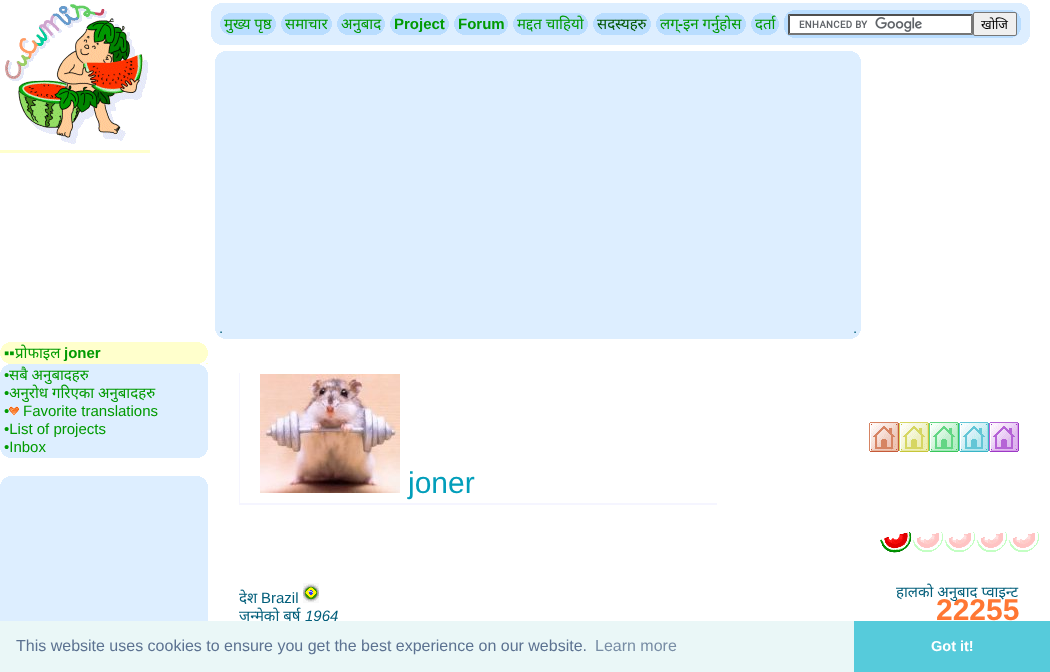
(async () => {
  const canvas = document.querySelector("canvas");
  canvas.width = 1050;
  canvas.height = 672;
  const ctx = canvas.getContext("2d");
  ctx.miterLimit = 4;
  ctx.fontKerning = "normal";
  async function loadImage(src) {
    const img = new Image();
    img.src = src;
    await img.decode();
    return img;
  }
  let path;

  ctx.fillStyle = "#ffffff";
  ctx.fillRect(0, 0, 1050, 672);
  ctx.drawImage(await loadImage("img/1.png"), 0, 4, 150, 146);
  ctx.fillStyle = "#ffffcc";
  ctx.fillRect(0, 150, 150, 3);
  ctx.fillStyle = "#ddeeff";
  ctx.fillRect(211, 3, 819, 42);
  ctx.drawImage(await loadImage("img/2.png"), 211, 3, 8, 8);
  ctx.drawImage(await loadImage("img/3.png"), 1022, 3, 8, 8);
  ctx.drawImage(await loadImage("img/4.png"), 211, 37, 8, 8);
  ctx.drawImage(await loadImage("img/5.png"), 1022, 37, 8, 8);
  ctx.fillStyle = "#b9ddff";
  ctx.fillRect(220, 13, 56, 22);
  ctx.drawImage(await loadImage("img/6.png"), 220, 13, 8, 8);
  ctx.drawImage(await loadImage("img/7.png"), 268, 13, 8, 8);
  ctx.drawImage(await loadImage("img/8.png"), 220, 27, 8, 8);
  ctx.drawImage(await loadImage("img/9.png"), 268, 27, 8, 8);
  ctx.fillRect(281, 13, 51, 22);
  ctx.drawImage(await loadImage("img/6.png"), 281, 13, 8, 8);
  ctx.drawImage(await loadImage("img/7.png"), 324, 13, 8, 8);
  ctx.drawImage(await loadImage("img/8.png"), 281, 27, 8, 8);
  ctx.drawImage(await loadImage("img/9.png"), 324, 27, 8, 8);
  ctx.fillRect(337, 13, 48, 22);
  ctx.drawImage(await loadImage("img/6.png"), 337, 13, 8, 8);
  ctx.drawImage(await loadImage("img/7.png"), 377, 13, 8, 8);
  ctx.drawImage(await loadImage("img/8.png"), 337, 27, 8, 8);
  ctx.drawImage(await loadImage("img/9.png"), 377, 27, 8, 8);
  ctx.fillRect(390, 13, 59, 22);
  ctx.drawImage(await loadImage("img/6.png"), 390, 13, 8, 8);
  ctx.drawImage(await loadImage("img/7.png"), 441, 13, 8, 8);
  ctx.drawImage(await loadImage("img/8.png"), 390, 27, 8, 8);
  ctx.drawImage(await loadImage("img/9.png"), 441, 27, 8, 8);
  ctx.fillRect(454, 13, 54, 22);
  ctx.drawImage(await loadImage("img/6.png"), 454, 13, 8, 8);
  ctx.drawImage(await loadImage("img/7.png"), 500, 13, 8, 8);
  ctx.drawImage(await loadImage("img/8.png"), 454, 27, 8, 8);
  ctx.drawImage(await loadImage("img/9.png"), 500, 27, 8, 8);
  ctx.fillRect(513, 13, 75, 22);
  ctx.drawImage(await loadImage("img/6.png"), 513, 13, 8, 8);
  ctx.drawImage(await loadImage("img/7.png"), 580, 13, 8, 8);
  ctx.drawImage(await loadImage("img/8.png"), 513, 27, 8, 8);
  ctx.drawImage(await loadImage("img/9.png"), 580, 27, 8, 8);
  ctx.fillRect(593, 13, 58, 22);
  ctx.drawImage(await loadImage("img/6.png"), 593, 13, 8, 8);
  ctx.drawImage(await loadImage("img/7.png"), 643, 13, 8, 8);
  ctx.drawImage(await loadImage("img/8.png"), 593, 27, 8, 8);
  ctx.drawImage(await loadImage("img/9.png"), 643, 27, 8, 8);
  ctx.fillRect(656, 13, 90, 22);
  ctx.drawImage(await loadImage("img/6.png"), 656, 13, 8, 8);
  ctx.drawImage(await loadImage("img/7.png"), 738, 13, 8, 8);
  ctx.drawImage(await loadImage("img/8.png"), 656, 27, 8, 8);
  ctx.drawImage(await loadImage("img/9.png"), 738, 27, 8, 8);
  ctx.fillRect(751, 13, 28, 22);
  ctx.drawImage(await loadImage("img/6.png"), 751, 13, 8, 8);
  ctx.drawImage(await loadImage("img/7.png"), 771, 13, 8, 8);
  ctx.drawImage(await loadImage("img/8.png"), 751, 27, 8, 8);
  ctx.drawImage(await loadImage("img/9.png"), 771, 27, 8, 8);
  ctx.fillRect(784, 10, 237, 28);
  ctx.drawImage(await loadImage("img/6.png"), 784, 10, 8, 8);
  ctx.drawImage(await loadImage("img/7.png"), 1013, 10, 8, 8);
  ctx.drawImage(await loadImage("img/8.png"), 784, 30, 8, 8);
  ctx.drawImage(await loadImage("img/9.png"), 1013, 30, 8, 8);
  ctx.fillStyle = "#ffffff";
  ctx.fillRect(788, 14, 185, 21);
  ctx.drawImage(await loadImage("img/10.png"), 799, 17, 123, 15);
  ctx.fillStyle = "#4f4f4f";
  path = new Path2D("M788 14H973L971 16H790Z");
  ctx.fill(path);
  ctx.fillStyle = "#767676";
  path = new Path2D("M973 14V35L971 33V16Z");
  ctx.fill(path);
  path = new Path2D("M973 35H788L790 33H971Z");
  ctx.fill(path);
  ctx.fillStyle = "#4f4f4f";
  path = new Path2D("M788 35V14L790 16V33Z");
  ctx.fill(path);
  ctx.fillStyle = "#efefef";
  ctx.beginPath();
  ctx.roundRect(973.5, 12.5, 43, 23, 1.5);
  ctx.fill();
  ctx.strokeStyle = "#767676";
  ctx.stroke();
  ctx.fillStyle = "#ddeeff";
  ctx.fillRect(215, 51, 646, 288);
  ctx.drawImage(await loadImage("img/2.png"), 215, 51, 8, 8);
  ctx.drawImage(await loadImage("img/3.png"), 853, 51, 8, 8);
  ctx.drawImage(await loadImage("img/4.png"), 215, 331, 8, 8);
  ctx.drawImage(await loadImage("img/5.png"), 853, 331, 8, 8);
  ctx.fillStyle = "#ffffcc";
  ctx.fillRect(0, 342, 208, 22);
  ctx.drawImage(await loadImage("img/11.png"), 0, 342, 8, 8);
  ctx.drawImage(await loadImage("img/12.png"), 200, 342, 8, 8);
  ctx.drawImage(await loadImage("img/13.png"), 0, 356, 8, 8);
  ctx.drawImage(await loadImage("img/14.png"), 200, 356, 8, 8);
  ctx.fillStyle = "#ddeeff";
  ctx.fillRect(0, 364, 208, 94);
  ctx.drawImage(await loadImage("img/2.png"), 0, 364, 8, 8);
  ctx.drawImage(await loadImage("img/3.png"), 200, 364, 8, 8);
  ctx.drawImage(await loadImage("img/4.png"), 0, 450, 8, 8);
  ctx.drawImage(await loadImage("img/5.png"), 200, 450, 8, 8);
  ctx.drawImage(await loadImage("img/15.png"), 9, 406, 10, 10);
  ctx.fillRect(0, 476, 208, 145);
  ctx.drawImage(await loadImage("img/2.png"), 0, 476, 8, 8);
  ctx.drawImage(await loadImage("img/3.png"), 200, 476, 8, 8);
  ctx.drawImage(await loadImage("img/16.png"), 869, 422, 150, 30);
  ctx.fillStyle = "#f5f5ff";
  ctx.fillRect(239, 503, 478, 2);
  ctx.fillRect(239, 373, 1, 132);
  ctx.drawImage(await loadImage("img/17.png"), 260, 374, 140, 119);
  ctx.drawImage(await loadImage("img/18.png"), 880, 532, 32, 21);
  ctx.drawImage(await loadImage("img/19.png"), 912, 532, 31, 20);
  ctx.drawImage(await loadImage("img/19.png"), 944, 532, 31, 20);
  ctx.drawImage(await loadImage("img/19.png"), 976, 532, 31, 20);
  ctx.drawImage(await loadImage("img/19.png"), 1008, 532, 31, 20);
  ctx.drawImage(await loadImage("img/20.png"), 303, 583, 16, 20);
  ctx.fillStyle = "#56cbdb";
  ctx.fillRect(854, 621, 196, 51);
  ctx.font = "15px Noto Sans";
  ctx.fillStyle = "#019a01";
  for (const [text, x, y] of [
    ["मुख्य पृष्ठ", 224, 29],
    ["समाचार", 285, 29],
    ["अनुबाद", 341, 29],
  ]) {
    ctx.fillText(text, x, y);
  }
  ctx.font = "bold 15px Liberation Sans";
  ctx.fillText("Project", 394, 29);
  ctx.fillText("Forum", 458, 29);
  ctx.font = "15px Noto Sans";
  ctx.fillText("मद्दत चाहियो", 517, 29);
  ctx.fillStyle = "#005500";
  ctx.fillText("सदस्यहरु", 597, 29);
  ctx.fillStyle = "#019a01";
  ctx.fillText("लग्", 660, 29);
  ctx.font = "bold 15px Liberation Sans";
  ctx.fillText("-", 678, 29);
  ctx.font = "15px Noto Sans";
  ctx.fillText("इन गर्नुहोस", 683, 29);
  ctx.fillText("दर्ता", 755, 29);
  ctx.font = "13px Noto Sans";
  ctx.fillStyle = "#000000";
  ctx.fillText("खोजि", 981, 29);
  ctx.font = "15px Liberation Sans";
  ctx.fillStyle = "#025e7a";
  ctx.fillText(".", 219, 333);
  ctx.fillText(".", 853, 333);
  ctx.fillStyle = "#019a01";
  ctx.fillText("▪▪", 4, 358);
  ctx.font = "15px Noto Sans";
  ctx.fillText("प्रोफाइल", 15, 358);
  ctx.font = "bold 15px Liberation Sans";
  ctx.fillText("joner", 64, 358);
  ctx.font = "15px Liberation Sans";
  ctx.fillText("•", 4, 380);
  ctx.font = "15px Noto Sans";
  ctx.fillText("सबै अनुबादहरु", 9, 380);
  ctx.font = "15px Liberation Sans";
  ctx.fillText("•", 4, 398);
  ctx.font = "15px Noto Sans";
  ctx.fillText("अनुरोध गरिएका अनुबादहरु", 9, 398);
  ctx.font = "15px Liberation Sans";
  for (const [text, x, y] of [
    ["•", 4, 416],
    ["Favorite translations", 23, 416],
    ["•List of projects", 4, 434],
    ["•Inbox", 4, 452],
  ]) {
    ctx.fillText(text, x, y);
  }
  ctx.font = "30px Liberation Sans";
  ctx.fillStyle = "#029eba";
  ctx.fillText("joner", 408, 493);
  ctx.font = "15px Noto Sans";
  ctx.fillStyle = "#025e7a";
  ctx.fillText("देश", 239, 603);
  ctx.font = "15px Liberation Sans";
  ctx.fillText("Brazil", 261, 603);
  ctx.font = "15px Noto Sans";
  ctx.fillText("जन्मेको बर्ष", 239, 621);
  ctx.font = "italic 15px Liberation Sans";
  ctx.fillText("1964", 305, 621);
  ctx.font = "15px Noto Sans";
  ctx.fillText("हालको अनुबाद प्वाइन्ट", 896, 597);
  ctx.font = "bold 30px Liberation Sans";
  ctx.fillStyle = "#ff7733";
  ctx.fillText("22255", 936, 620);
  ctx.fillStyle = "#eaf7f7";
  ctx.fillRect(0, 621, 854, 51);
  ctx.font = "16px Liberation Sans";
  ctx.fillStyle = "#5c7291";
  ctx.fillText("This website uses cookies to ensure you get the best experience on our website.", 16, 651);
  ctx.fillStyle = "#788da5";
  ctx.fillText("Learn more", 595, 651);
  ctx.font = "bold 14.5px Liberation Sans";
  ctx.fillStyle = "#ffffff";
  ctx.fillText("Got it!", 931, 651);
})();
